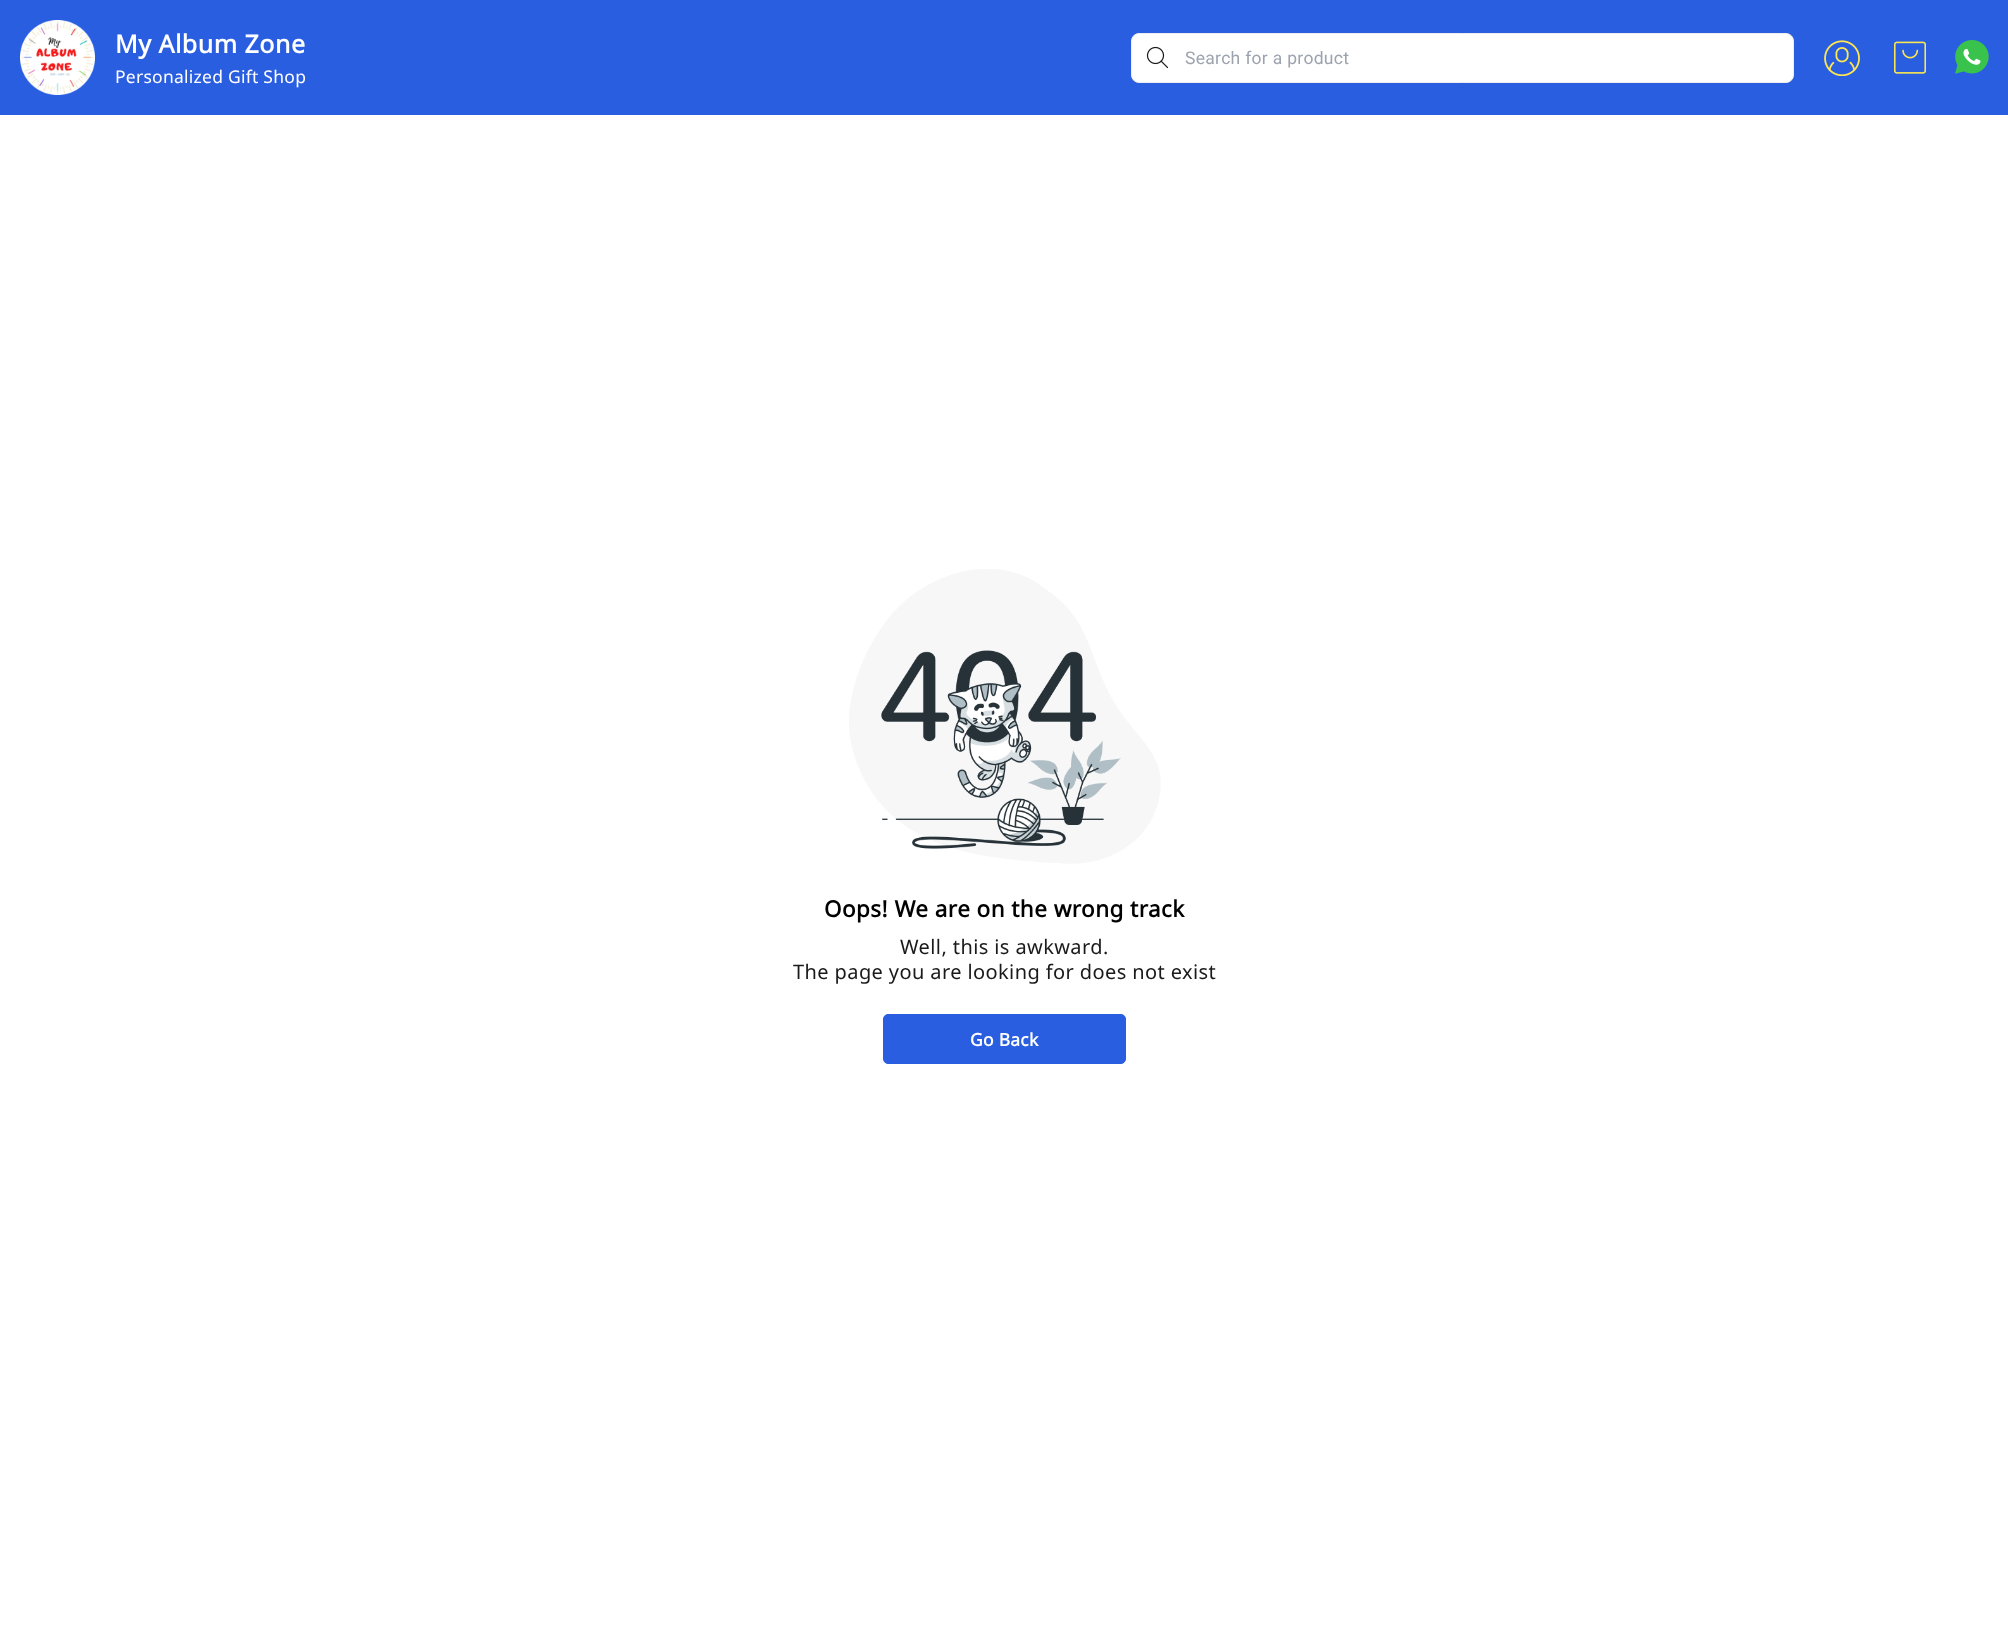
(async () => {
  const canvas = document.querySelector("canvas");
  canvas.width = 2008;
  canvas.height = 1650;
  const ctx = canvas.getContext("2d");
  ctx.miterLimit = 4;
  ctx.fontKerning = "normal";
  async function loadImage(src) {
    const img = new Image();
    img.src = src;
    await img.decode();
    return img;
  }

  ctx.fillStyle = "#ffffff";
  ctx.fillRect(0, 0, 2008, 1650);
  ctx.fillStyle = "#2a5ee1";
  ctx.fillRect(0, 0, 2008, 115);
  ctx.drawImage(await loadImage("img/1.png"), 20, 20, 75, 75);
  ctx.fillStyle = "#ffffff";
  ctx.beginPath();
  ctx.roundRect(1131.5, 33.5, 662, 49, 7.5);
  ctx.fill();
  ctx.strokeStyle = "#eeeeee";
  ctx.stroke();
  ctx.drawImage(await loadImage("img/2.png"), 1146, 46, 22, 23);
  ctx.drawImage(await loadImage("img/3.png"), 1824, 40, 36, 36);
  ctx.drawImage(await loadImage("img/4.png"), 1894, 41, 32, 33);
  ctx.drawImage(await loadImage("img/5.png"), 1955, 40, 34, 34);
  ctx.drawImage(await loadImage("img/6.png"), 849, 569, 312, 295);
  ctx.fillStyle = "#2a5ee1";
  ctx.beginPath();
  ctx.roundRect(883.5, 1014.5, 242, 49, 4.5);
  ctx.fill();
  ctx.strokeStyle = "#2a5ee1";
  ctx.stroke();
  ctx.letterSpacing = "0.5px";
  ctx.font = "bold 25px Noto Sans";
  ctx.fillStyle = "#ffffff";
  ctx.fillText("My Album Zone", 115, 53);
  ctx.letterSpacing = "0.25px";
  ctx.font = "17.5px Noto Sans";
  ctx.fillText("Personalized Gift Shop", 115, 83);
  ctx.letterSpacing = "0.3px";
  ctx.font = "17.5px Roboto";
  ctx.fillStyle = "#9ca3af";
  ctx.fillText("Search for a product", 1185, 64);
  ctx.letterSpacing = "0.45px";
  ctx.font = "bold 22.5px Noto Sans";
  ctx.fillStyle = "#000000";
  ctx.fillText("Oops! We are on the wrong track", 824, 917);
  ctx.letterSpacing = "0.4px";
  ctx.font = "20px Noto Sans";
  ctx.fillStyle = "#1a1a1a";
  ctx.fillText("Well, this is awkward.", 900, 954);
  ctx.fillText("The page you are looking for does not exist", 793, 979);
  ctx.letterSpacing = "0.25px";
  ctx.font = "bold 17.5px Noto Sans";
  ctx.fillStyle = "#ffffff";
  ctx.fillText("Go Back", 970, 1046);
})();
